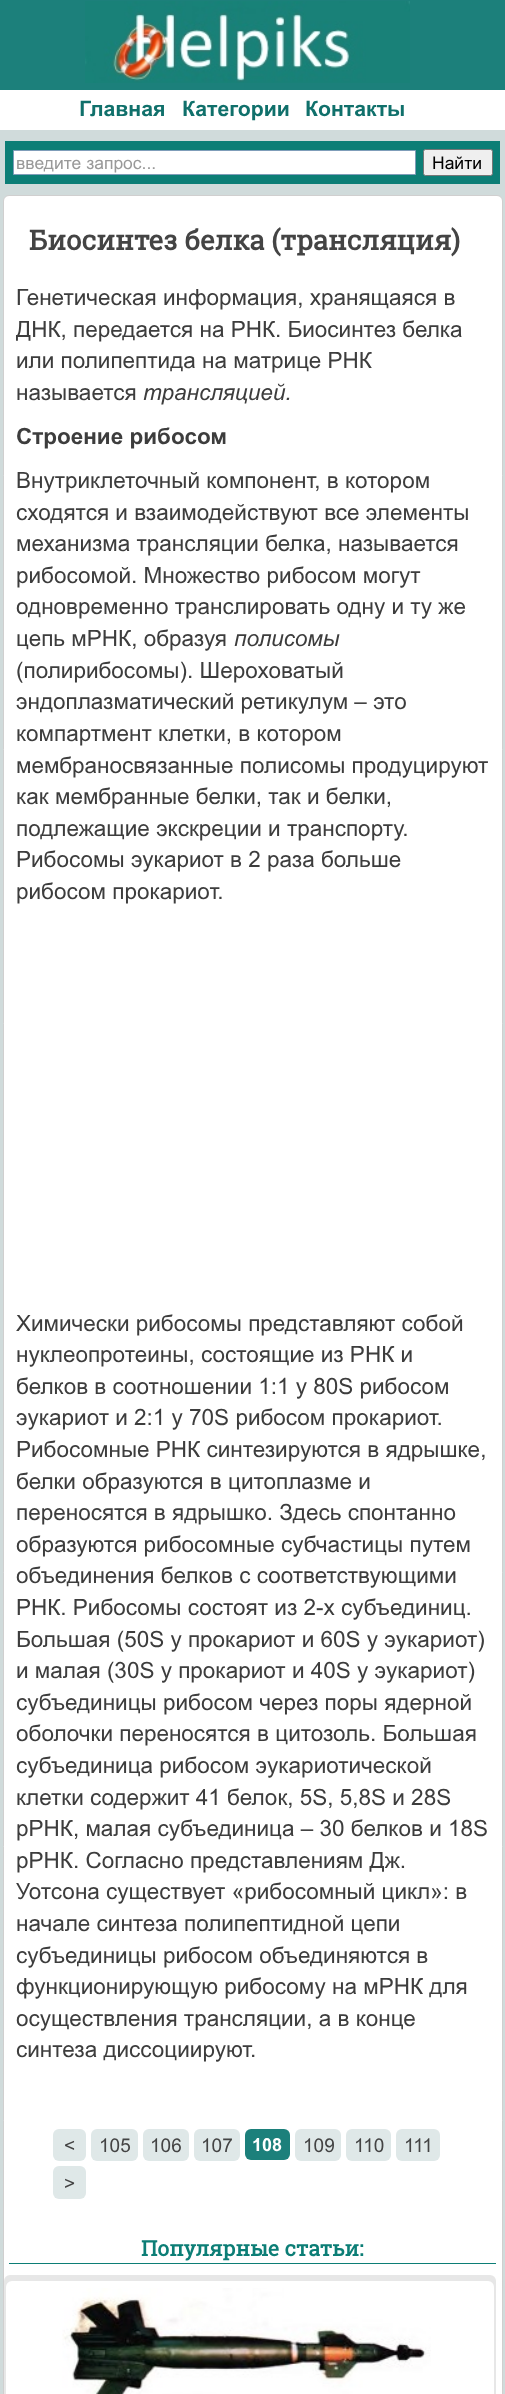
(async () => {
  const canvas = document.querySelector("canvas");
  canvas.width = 505;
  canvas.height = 2394;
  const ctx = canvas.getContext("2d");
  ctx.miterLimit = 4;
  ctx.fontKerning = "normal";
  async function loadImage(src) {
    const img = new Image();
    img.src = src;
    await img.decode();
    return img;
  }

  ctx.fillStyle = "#d0dbdb";
  ctx.fillRect(0, 0, 505, 2394);
  ctx.fillStyle = "#1c807b";
  ctx.fillRect(0, 0, 505, 90);
  ctx.drawImage(await loadImage("img/1.png"), 85, 1, 325, 82);
  ctx.fillStyle = "#ffffff";
  ctx.fillRect(0, 90, 505, 40);
  ctx.fillStyle = "#0c7e76";
  ctx.fillRect(5, 141, 495, 43);
  ctx.fillStyle = "#ffffff";
  ctx.beginPath();
  ctx.rect(13.5, 150.5, 402, 24);
  ctx.fill();
  ctx.strokeStyle = "#7f9db9";
  ctx.stroke();
  ctx.fillStyle = "#efefef";
  ctx.beginPath();
  ctx.roundRect(423.5, 149.5, 69, 26, 2);
  ctx.fill();
  ctx.strokeStyle = "#767676";
  ctx.stroke();
  ctx.fillStyle = "#ffffff";
  ctx.beginPath();
  ctx.roundRect(3.5, 195.5, 499, 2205, 5.5);
  ctx.fill();
  ctx.strokeStyle = "#d0cfcf";
  ctx.stroke();
  ctx.fillStyle = "#dfe8e8";
  ctx.beginPath();
  ctx.roundRect(53, 2129, 33, 32, 6);
  ctx.fill();
  ctx.beginPath();
  ctx.roundRect(91, 2129, 47, 32, 6);
  ctx.fill();
  ctx.beginPath();
  ctx.roundRect(143, 2129, 46, 32, 6);
  ctx.fill();
  ctx.beginPath();
  ctx.roundRect(194, 2129, 46, 32, 6);
  ctx.fill();
  ctx.fillStyle = "#1c807b";
  ctx.beginPath();
  ctx.roundRect(245, 2129, 45, 31, 6);
  ctx.fill();
  ctx.fillStyle = "#dfe8e8";
  ctx.beginPath();
  ctx.roundRect(295, 2129, 46, 32, 6);
  ctx.fill();
  ctx.beginPath();
  ctx.roundRect(346, 2129, 45, 32, 6);
  ctx.fill();
  ctx.beginPath();
  ctx.roundRect(396, 2129, 44, 32, 6);
  ctx.fill();
  ctx.beginPath();
  ctx.roundRect(53, 2166, 33, 33, 6);
  ctx.fill();
  ctx.fillStyle = "#0c7e76";
  ctx.fillRect(9, 2263, 487, 1);
  ctx.fillStyle = "#e7e7e7";
  ctx.beginPath();
  ctx.roundRect(4, 2275, 492, 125, 6);
  ctx.fill();
  ctx.fillStyle = "#ffffff";
  ctx.beginPath();
  ctx.roundRect(6, 2281, 488, 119, 6);
  ctx.fill();
  ctx.drawImage(await loadImage("img/2.png"), 62, 2288, 369, 106);
  ctx.font = "bold 21.25px Arial";
  ctx.fillStyle = "#10706b";
  for (const [text, x, y] of [
    ["Главная", 79, 116],
    ["Категории", 182, 116],
    ["Контакты", 305, 116],
  ]) {
    ctx.fillText(text, x, y);
  }
  ctx.font = "17.5px Arial";
  ctx.fillStyle = "#999999";
  ctx.fillText("введите запрос...", 16, 169);
  ctx.fillStyle = "#000000";
  ctx.fillText("Найти", 432, 169);
  ctx.font = "bold 27.5px Roboto Slab";
  ctx.fillStyle = "#444444";
  ctx.fillText("Биосинтез белка (трансляция)", 29, 250);
  ctx.font = "22.5px Arial";
  ctx.fillStyle = "#3d3d3d";
  for (const [text, x, y] of [
    ["Генетическая информация, хранящаяся в", 16, 305],
    ["ДНК, передается на РНК. Биосинтез белка", 16, 337],
    ["или полипептида на матрице РНК", 16, 368],
    ["называется", 16, 400],
  ]) {
    ctx.fillText(text, x, y);
  }
  ctx.font = "italic 22.5px Arial";
  ctx.fillText("трансляцией.", 143, 400);
  ctx.font = "bold 22.5px Arial";
  ctx.fillText("Строение рибосом", 16, 444);
  ctx.font = "22.5px Arial";
  for (const [text, x, y] of [
    ["Внутриклеточный компонент, в котором", 16, 488],
    ["сходятся и взаимодействуют все элементы", 16, 520],
    ["механизма трансляции белка, называется", 16, 551],
    ["рибосомой. Множество рибосом могут", 16, 583],
    ["одновременно транслировать одну и ту же", 16, 614],
    ["цепь мРНК, образуя", 16, 646],
  ]) {
    ctx.fillText(text, x, y);
  }
  ctx.font = "italic 22.5px Arial";
  ctx.fillText("полисомы", 234, 646);
  ctx.font = "22.5px Arial";
  for (const [text, x, y] of [
    ["(полирибосомы). Шероховатый", 16, 678],
    ["эндоплазматический ретикулум – это", 16, 709],
    ["компартмент клетки, в котором", 16, 741],
    ["мембраносвязанные полисомы продуцируют", 16, 773],
    ["как мембранные белки, так и белки,", 16, 804],
    ["подлежащие экскреции и транспорту.", 16, 836],
    ["Рибосомы эукариот в 2 раза больше", 16, 867],
    ["рибосом прокариот.", 16, 899],
    ["Химически рибосомы представляют собой", 16, 1331],
    ["нуклеопротеины, состоящие из РНК и", 16, 1362],
    ["белков в соотношении 1:1 у 80S рибосом", 16, 1394],
    ["эукариот и 2:1 у 70S рибосом прокариот.", 16, 1425],
    ["Рибосомные РНК синтезируются в ядрышке,", 16, 1457],
    ["белки образуются в цитоплазме и", 16, 1489],
    ["переносятся в ядрышко. Здесь спонтанно", 16, 1520],
    ["образуются рибосомные субчастицы путем", 16, 1552],
    ["объединения белков с соответствующими", 16, 1583],
    ["РНК. Рибосомы состоят из 2-х субъединиц.", 16, 1615],
    ["Большая (50S у прокариот и 60S у эукариот)", 16, 1647],
    ["и малая (30S у прокариот и 40S у эукариот)", 16, 1678],
    ["субъединицы рибосом через поры ядерной", 16, 1710],
    ["оболочки переносятся в цитозоль. Большая", 16, 1741],
    ["субъединица рибосом эукариотической", 16, 1773],
    ["клетки содержит 41 белок, 5S, 5,8S и 28S", 16, 1805],
    ["рРНК, малая субъединица – 30 белков и 18S", 16, 1836],
    ["рРНК. Согласно представлениям Дж.", 16, 1868],
    ["Уотсона существует «рибосомный цикл»: в", 16, 1899],
    ["начале синтеза полипептидной цепи", 16, 1931],
    ["субъединицы рибосом объединяются в", 16, 1963],
    ["функционирующую рибосому на мРНК для", 16, 1994],
    ["осуществления трансляции, а в конце", 16, 2026],
    ["синтеза диссоциируют.", 16, 2057],
  ]) {
    ctx.fillText(text, x, y);
  }
  ctx.font = "19px Arial";
  ctx.fillStyle = "#444444";
  for (const [text, x, y] of [
    ["<", 64, 2152],
    ["105", 99, 2152],
    ["106", 150, 2152],
    ["107", 201, 2152],
  ]) {
    ctx.fillText(text, x, y);
  }
  ctx.font = "bold 18px Arial";
  ctx.fillStyle = "#ffffff";
  ctx.fillText("108", 252, 2151);
  ctx.font = "19px Arial";
  ctx.fillStyle = "#444444";
  for (const [text, x, y] of [
    ["109", 303, 2152],
    ["110", 354, 2152],
    ["111", 404, 2152],
    [">", 64, 2190],
  ]) {
    ctx.fillText(text, x, y);
  }
  ctx.font = "bold 21.25px Roboto Slab";
  ctx.fillStyle = "#0c7e76";
  ctx.fillText("Популярные статьи:", 141, 2256);
})();
